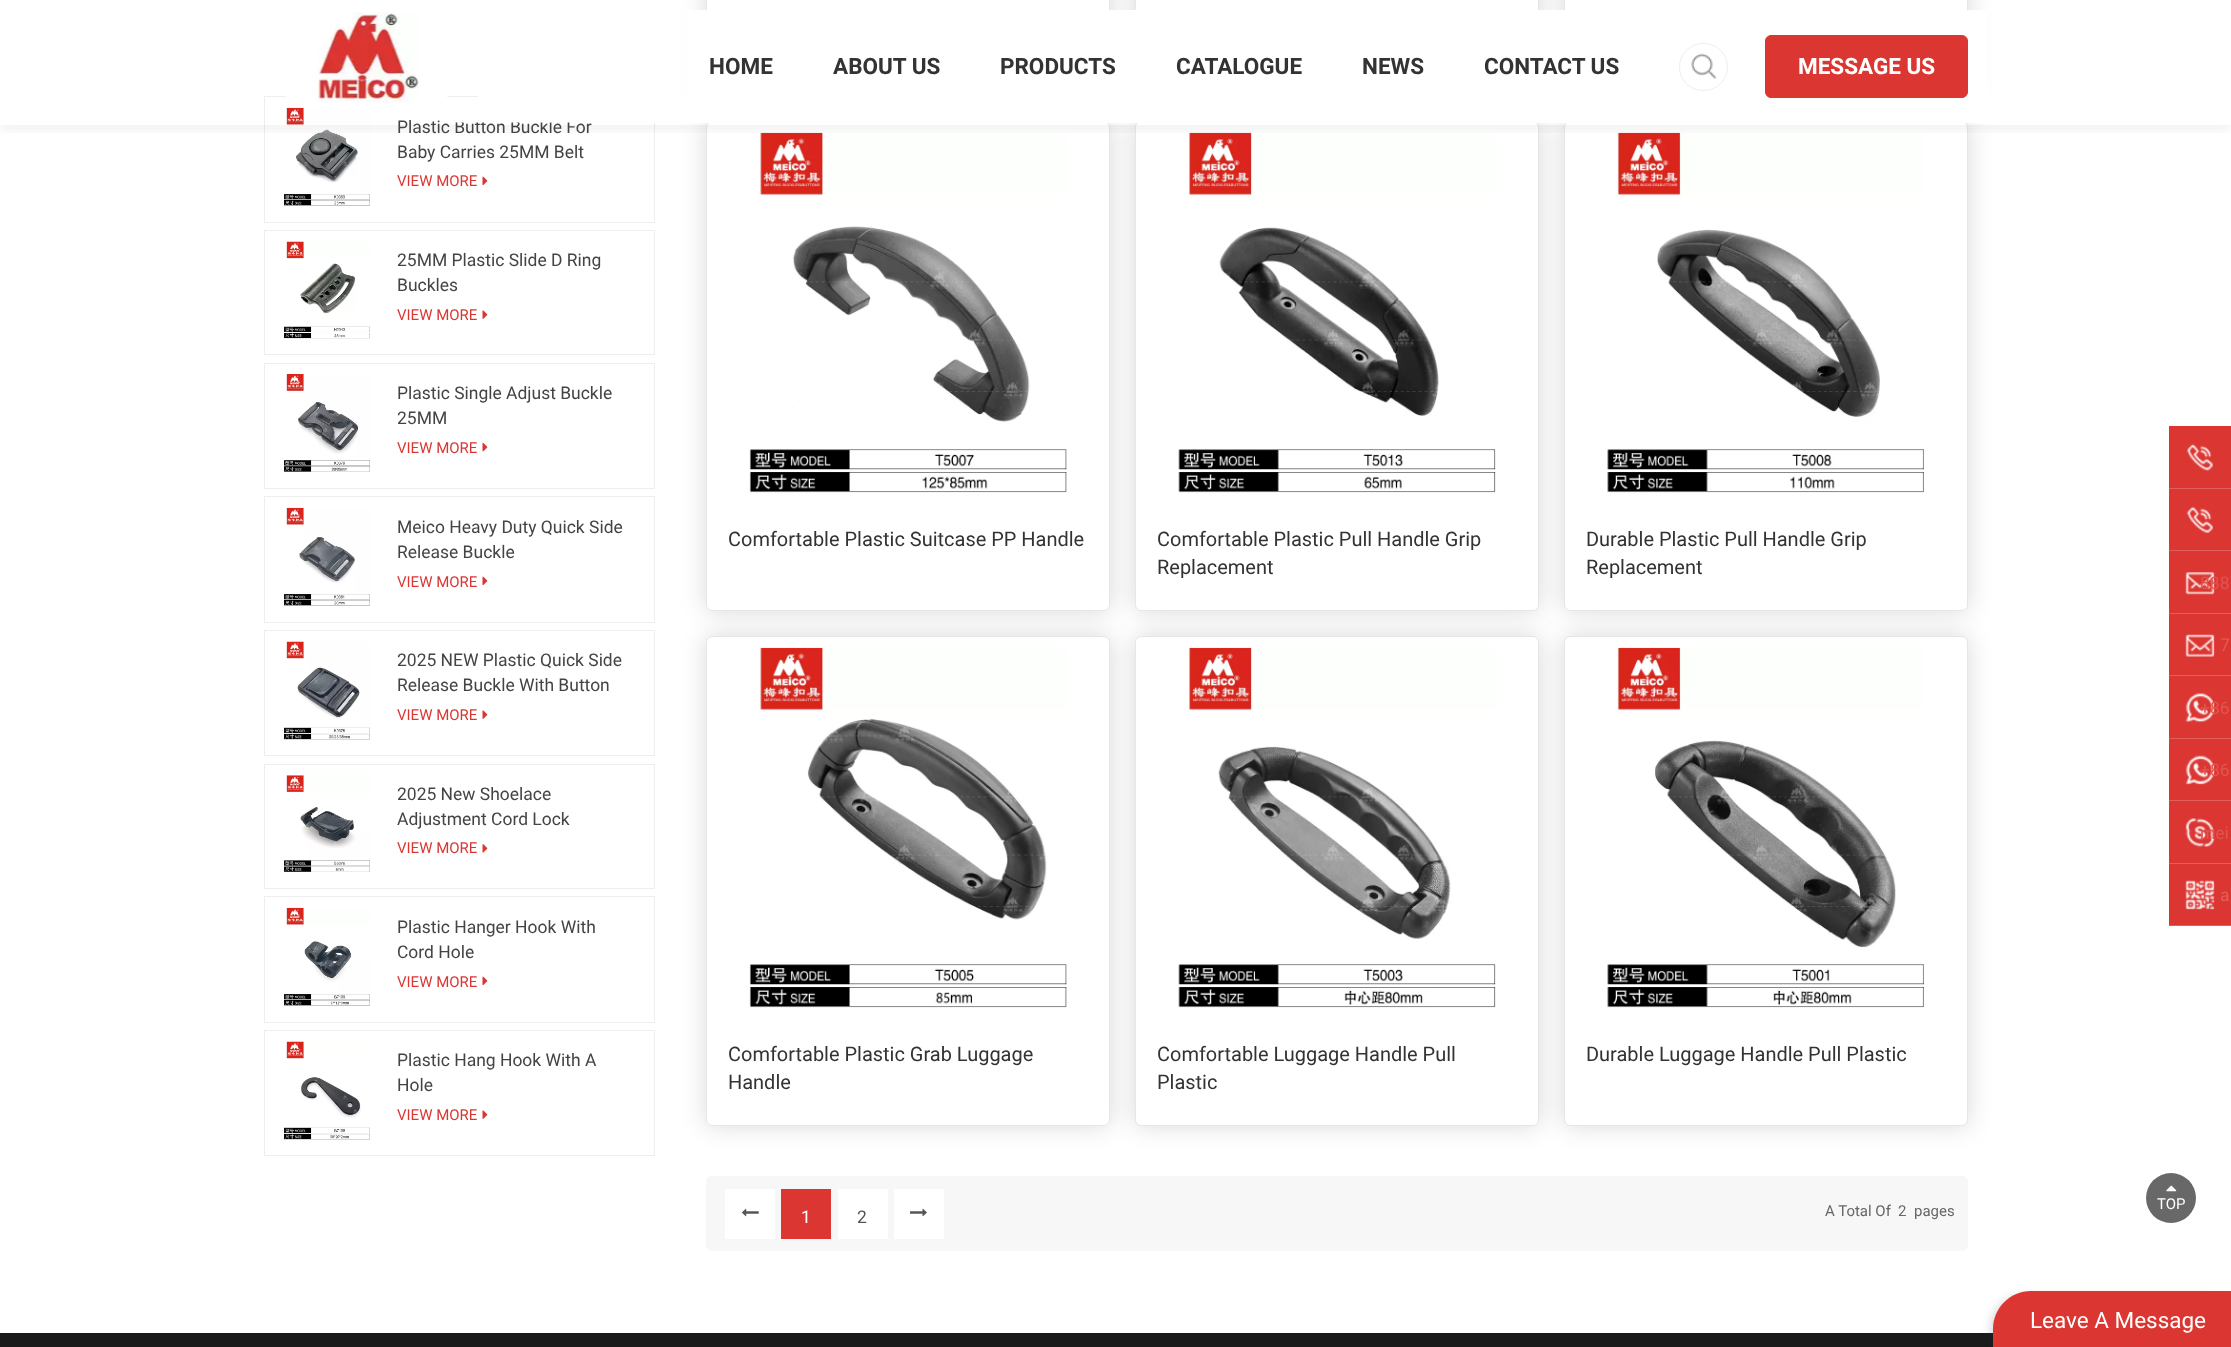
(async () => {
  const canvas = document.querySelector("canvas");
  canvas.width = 2231;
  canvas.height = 1347;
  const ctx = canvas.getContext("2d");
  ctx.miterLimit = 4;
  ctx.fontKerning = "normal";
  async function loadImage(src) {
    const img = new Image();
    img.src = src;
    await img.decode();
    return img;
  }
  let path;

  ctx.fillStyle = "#ffffff";
  ctx.fillRect(0, 0, 2231, 1347);
  ctx.strokeStyle = "#eeeeee";
  ctx.strokeRect(264.5, 96.5, 390, 126);
  ctx.drawImage(await loadImage("img/5.png"), 284, 107, 86, 99);
  ctx.fillStyle = "rgba(0, 0, 0, 0.15)";
  ctx.filter = "blur(12.5px)";
  ctx.beginPath();
  ctx.roundRect(706, -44, 404, 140, 6);
  ctx.fill();
  ctx.filter = "none";
  ctx.fillStyle = "#ffffff";
  ctx.fillRect(707, 0, 402, 10);
  ctx.strokeStyle = "#e6e6e6";
  ctx.strokeRect(706.5, -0.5, 403, 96);
  ctx.fillStyle = "rgba(0, 0, 0, 0.15)";
  ctx.filter = "blur(12.5px)";
  ctx.beginPath();
  ctx.roundRect(1135, -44, 404, 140, 6);
  ctx.fill();
  ctx.filter = "none";
  ctx.fillStyle = "#ffffff";
  ctx.fillRect(1136, 0, 402, 10);
  ctx.strokeRect(1135.5, -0.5, 403, 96);
  ctx.fillStyle = "rgba(0, 0, 0, 0.15)";
  ctx.filter = "blur(12.5px)";
  ctx.beginPath();
  ctx.roundRect(1564, -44, 404, 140, 6);
  ctx.fill();
  ctx.filter = "none";
  ctx.fillStyle = "#ffffff";
  ctx.fillRect(1565, 0, 402, 10);
  ctx.strokeRect(1564.5, -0.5, 403, 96);
  ctx.fillStyle = "rgba(0, 0, 0, 0.15)";
  ctx.filter = "blur(12.5px)";
  ctx.beginPath();
  ctx.roundRect(706, 121, 404, 490, 6);
  ctx.fill();
  ctx.filter = "none";
  ctx.fillStyle = "#ffffff";
  ctx.beginPath();
  ctx.roundRect(706.5, 121.5, 403, 489, 5.5);
  ctx.fill();
  ctx.stroke();
  ctx.drawImage(await loadImage("img/17.png"), 749, 132, 318, 361);
  ctx.fillStyle = "rgba(0, 0, 0, 0.15)";
  ctx.filter = "blur(12.5px)";
  ctx.beginPath();
  ctx.roundRect(1135, 121, 404, 490, 6);
  ctx.fill();
  ctx.filter = "none";
  ctx.fillStyle = "#ffffff";
  ctx.beginPath();
  ctx.roundRect(1135.5, 121.5, 403, 489, 5.5);
  ctx.fill();
  ctx.stroke();
  ctx.drawImage(await loadImage("img/18.png"), 1178, 132, 318, 361);
  ctx.fillStyle = "rgba(0, 0, 0, 0.15)";
  ctx.filter = "blur(12.5px)";
  ctx.beginPath();
  ctx.roundRect(1564, 121, 404, 490, 6);
  ctx.fill();
  ctx.filter = "none";
  ctx.fillStyle = "#ffffff";
  ctx.beginPath();
  ctx.roundRect(1564.5, 121.5, 403, 489, 5.5);
  ctx.fill();
  ctx.stroke();
  ctx.drawImage(await loadImage("img/19.png"), 1607, 132, 317, 361);
  ctx.save();
  ctx.beginPath();
  ctx.rect(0, 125, 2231, 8);
  ctx.clip();
  ctx.fillStyle = "rgba(0, 0, 0, 0.05)";
  ctx.filter = "blur(6px)";
  ctx.beginPath();
  ctx.rect(0, 6, 2231, 125);
  ctx.fill();
  ctx.filter = "none";
  ctx.restore();
  ctx.drawImage(await loadImage("img/2.png"), 265, 45, 187, 52);
  ctx.drawImage(await loadImage("img/1.png"), 315, 12, 104, 91);
  ctx.fillRect(687, 10, 1300, 113);
  ctx.beginPath();
  ctx.roundRect(1679.5, 43.5, 48, 47, 23.5);
  ctx.strokeStyle = "#eeeeee";
  ctx.stroke();
  ctx.drawImage(await loadImage("img/3.png"), 1691, 53, 26, 26);
  ctx.fillStyle = "#db3632";
  ctx.beginPath();
  ctx.roundRect(1765.5, 35.5, 202, 62, 5.5);
  ctx.fill();
  ctx.strokeStyle = "#db3632";
  ctx.stroke();
  ctx.drawImage(await loadImage("img/6.png"), 482, 176, 6, 10);
  ctx.strokeStyle = "#eeeeee";
  ctx.strokeRect(264.5, 230.5, 390, 124);
  ctx.drawImage(await loadImage("img/7.png"), 284, 241, 86, 98);
  ctx.drawImage(await loadImage("img/8.png"), 482, 310, 6, 9);
  ctx.strokeRect(264.5, 363.5, 390, 125);
  ctx.drawImage(await loadImage("img/9.png"), 284, 374, 86, 98);
  ctx.drawImage(await loadImage("img/10.png"), 482, 442, 6, 10);
  ctx.strokeRect(264.5, 496.5, 390, 126);
  ctx.drawImage(await loadImage("img/11.png"), 284, 507, 86, 99);
  ctx.drawImage(await loadImage("img/6.png"), 482, 576, 6, 10);
  ctx.strokeRect(264.5, 630.5, 390, 125);
  ctx.drawImage(await loadImage("img/12.png"), 284, 641, 86, 99);
  ctx.drawImage(await loadImage("img/8.png"), 482, 710, 6, 9);
  ctx.strokeRect(264.5, 764.5, 390, 124);
  ctx.drawImage(await loadImage("img/13.png"), 284, 775, 86, 97);
  ctx.drawImage(await loadImage("img/14.png"), 482, 844, 6, 9);
  ctx.strokeRect(264.5, 896.5, 390, 126);
  ctx.drawImage(await loadImage("img/15.png"), 284, 907, 86, 99);
  ctx.drawImage(await loadImage("img/6.png"), 482, 976, 6, 10);
  ctx.strokeRect(264.5, 1030.5, 390, 125);
  ctx.drawImage(await loadImage("img/16.png"), 284, 1041, 86, 99);
  ctx.drawImage(await loadImage("img/8.png"), 482, 1110, 6, 9);
  ctx.fillStyle = "rgba(0, 0, 0, 0.15)";
  ctx.filter = "blur(12.5px)";
  ctx.beginPath();
  ctx.roundRect(706, 636, 404, 490, 6);
  ctx.fill();
  ctx.filter = "none";
  ctx.fillStyle = "#ffffff";
  ctx.beginPath();
  ctx.roundRect(706.5, 636.5, 403, 489, 5.5);
  ctx.fill();
  ctx.strokeStyle = "#e6e6e6";
  ctx.stroke();
  ctx.drawImage(await loadImage("img/20.png"), 749, 647, 318, 361);
  ctx.fillStyle = "rgba(0, 0, 0, 0.15)";
  ctx.filter = "blur(12.5px)";
  ctx.beginPath();
  ctx.roundRect(1135, 636, 404, 490, 6);
  ctx.fill();
  ctx.filter = "none";
  ctx.fillStyle = "#ffffff";
  ctx.beginPath();
  ctx.roundRect(1135.5, 636.5, 403, 489, 5.5);
  ctx.fill();
  ctx.stroke();
  ctx.drawImage(await loadImage("img/21.png"), 1178, 647, 318, 361);
  ctx.fillStyle = "rgba(0, 0, 0, 0.15)";
  ctx.filter = "blur(12.5px)";
  ctx.beginPath();
  ctx.roundRect(1564, 636, 404, 490, 6);
  ctx.fill();
  ctx.filter = "none";
  ctx.fillStyle = "#ffffff";
  ctx.beginPath();
  ctx.roundRect(1564.5, 636.5, 403, 489, 5.5);
  ctx.fill();
  ctx.stroke();
  ctx.drawImage(await loadImage("img/22.png"), 1607, 647, 317, 361);
  ctx.fillStyle = "#f7f7f7";
  ctx.beginPath();
  ctx.roundRect(706, 1176, 1262, 75, 6);
  ctx.fill();
  ctx.fillStyle = "#ffffff";
  ctx.fillRect(725, 1189, 50, 50);
  ctx.drawImage(await loadImage("img/23.png"), 741, 1208, 18, 9);
  for (const [x, y, w, h, color] of [
    [781, 1189, 50, 50, "#db3632"],
    [838, 1189, 50, 50, "#ffffff"],
    [894, 1189, 50, 50, "#ffffff"],
  ]) {
    ctx.fillStyle = color;
    ctx.fillRect(x, y, w, h);
  }
  ctx.drawImage(await loadImage("img/24.png"), 910, 1208, 17, 9);
  ctx.fillStyle = "#db3632";
  ctx.fillRect(2169, 426, 62, 62);
  ctx.fillStyle = "#e25e5b";
  ctx.fillRect(2169, 488, 62, 1);
  ctx.drawImage(await loadImage("img/25.png"), 2186, 444, 27, 27);
  ctx.fillStyle = "#db3632";
  ctx.fillRect(2169, 489, 62, 61);
  ctx.fillStyle = "#e25e5b";
  ctx.fillRect(2169, 550, 62, 1);
  ctx.drawImage(await loadImage("img/26.png"), 2186, 506, 27, 27);
  ctx.fillStyle = "#db3632";
  ctx.fillRect(2169, 551, 62, 62);
  ctx.fillStyle = "#e25e5b";
  ctx.fillRect(2169, 613, 62, 1);
  ctx.drawImage(await loadImage("img/27.png"), 2185, 572, 30, 23);
  ctx.fillStyle = "#db3632";
  ctx.fillRect(2169, 614, 62, 61);
  ctx.fillStyle = "#e25e5b";
  ctx.fillRect(2169, 675, 62, 1);
  ctx.drawImage(await loadImage("img/28.png"), 2185, 634, 30, 23);
  ctx.fillStyle = "#db3632";
  ctx.fillRect(2169, 676, 62, 62);
  ctx.fillStyle = "#e25e5b";
  ctx.fillRect(2169, 738, 62, 1);
  ctx.drawImage(await loadImage("img/29.png"), 2185, 693, 30, 30);
  ctx.fillStyle = "#db3632";
  ctx.fillRect(2169, 739, 62, 61);
  ctx.fillStyle = "#e25e5b";
  ctx.fillRect(2169, 800, 62, 1);
  ctx.drawImage(await loadImage("img/30.png"), 2185, 755, 30, 30);
  ctx.fillStyle = "#db3632";
  ctx.fillRect(2169, 801, 62, 62);
  ctx.fillStyle = "#e25e5b";
  ctx.fillRect(2169, 863, 62, 1);
  ctx.drawImage(await loadImage("img/31.png"), 2185, 818, 30, 30);
  ctx.fillStyle = "#db3632";
  ctx.fillRect(2169, 864, 62, 61);
  ctx.fillStyle = "#e25e5b";
  ctx.fillRect(2169, 925, 62, 1);
  ctx.drawImage(await loadImage("img/32.png"), 2185, 880, 30, 30);
  ctx.fillStyle = "#686868";
  ctx.beginPath();
  ctx.arc(2171, 1198, 25, 0, Math.PI * 2);
  ctx.fill();
  ctx.drawImage(await loadImage("img/33.png"), 2166, 1185, 11, 7);
  ctx.fillStyle = "#1a1a1a";
  ctx.fillRect(0, 1333, 1993, 14);
  ctx.fillStyle = "rgba(35, 50, 56, 0.3)";
  ctx.filter = "blur(6px)";
  ctx.beginPath();
  ctx.roundRect(1993, 1298, 238, 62, 38);
  ctx.fill();
  ctx.filter = "none";
  ctx.fillStyle = "#db3632";
  path = new Path2D("M2031 1291H2231V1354H1993V1329C1993 1308 2010 1291 2031 1291Z");
  ctx.fill(path);
  ctx.font = "bold 22.5px Roboto";
  ctx.fillStyle = "#333333";
  for (const [text, x, y] of [
    ["HOME", 709, 74],
    ["ABOUT US", 833, 74],
    ["PRODUCTS", 1000, 74],
    ["CATALOGUE", 1176, 74],
    ["NEWS", 1362, 74],
    ["CONTACT US", 1484, 74],
  ]) {
    ctx.fillText(text, x, y);
  }
  ctx.fillStyle = "#ffffff";
  ctx.fillText("MESSAGE US", 1798, 74);
  ctx.font = "17.5px Roboto";
  ctx.fillStyle = "#444444";
  ctx.fillText("Plastic Button Buckle For", 397, 133);
  ctx.drawImage(await loadImage("img/4.png"), 455, 96, 200, 27);
  ctx.fillText("Baby Carries 25MM Belt", 397, 158);
  ctx.font = "15px Roboto";
  ctx.fillStyle = "#db3632";
  ctx.fillText("VIEW MORE", 397, 186);
  ctx.font = "17.5px Roboto";
  ctx.fillStyle = "#444444";
  ctx.fillText("25MM Plastic Slide D Ring", 397, 266);
  ctx.fillText("Buckles", 397, 291);
  ctx.font = "15px Roboto";
  ctx.fillStyle = "#db3632";
  ctx.fillText("VIEW MORE", 397, 320);
  ctx.font = "17.5px Roboto";
  ctx.fillStyle = "#444444";
  ctx.fillText("Plastic Single Adjust Buckle", 397, 399);
  ctx.fillText("25MM", 397, 424);
  ctx.font = "15px Roboto";
  ctx.fillStyle = "#db3632";
  ctx.fillText("VIEW MORE", 397, 453);
  ctx.font = "17.5px Roboto";
  ctx.fillStyle = "#444444";
  ctx.fillText("Meico Heavy Duty Quick Side", 397, 533);
  ctx.fillText("Release Buckle", 397, 558);
  ctx.font = "15px Roboto";
  ctx.fillStyle = "#db3632";
  ctx.fillText("VIEW MORE", 397, 587);
  ctx.font = "17.5px Roboto";
  ctx.fillStyle = "#444444";
  ctx.fillText("2025 NEW Plastic Quick Side", 397, 666);
  ctx.fillText("Release Buckle With Button", 397, 691);
  ctx.font = "15px Roboto";
  ctx.fillStyle = "#db3632";
  ctx.fillText("VIEW MORE", 397, 720);
  ctx.font = "17.5px Roboto";
  ctx.fillStyle = "#444444";
  ctx.fillText("2025 New Shoelace", 397, 800);
  ctx.fillText("Adjustment Cord Lock", 397, 825);
  ctx.font = "15px Roboto";
  ctx.fillStyle = "#db3632";
  ctx.fillText("VIEW MORE", 397, 853);
  ctx.font = "17.5px Roboto";
  ctx.fillStyle = "#444444";
  ctx.fillText("Plastic Hanger Hook With", 397, 933);
  ctx.fillText("Cord Hole", 397, 958);
  ctx.font = "15px Roboto";
  ctx.fillStyle = "#db3632";
  ctx.fillText("VIEW MORE", 397, 987);
  ctx.font = "17.5px Roboto";
  ctx.fillStyle = "#444444";
  ctx.fillText("Plastic Hang Hook With A", 397, 1066);
  ctx.fillText("Hole", 397, 1091);
  ctx.font = "15px Roboto";
  ctx.fillStyle = "#db3632";
  ctx.fillText("VIEW MORE", 397, 1120);
  ctx.font = "20px Roboto";
  ctx.fillStyle = "#333333";
  for (const [text, x, y] of [
    ["Comfortable Plastic Suitcase PP Handle", 728, 546],
    ["Comfortable Plastic Pull Handle Grip", 1157, 546],
    ["Replacement", 1157, 574],
    ["Durable Plastic Pull Handle Grip", 1586, 546],
    ["Replacement", 1586, 574],
    ["Comfortable Plastic Grab Luggage", 728, 1061],
    ["Handle", 728, 1089],
    ["Comfortable Luggage Handle Pull", 1157, 1061],
    ["Plastic", 1157, 1089],
    ["Durable Luggage Handle Pull Plastic", 1586, 1061],
  ]) {
    ctx.fillText(text, x, y);
  }
  ctx.font = "17.5px Roboto";
  ctx.fillStyle = "#ffffff";
  ctx.fillText("1", 801, 1223);
  ctx.fillStyle = "#555555";
  ctx.fillText("2", 857, 1223);
  ctx.font = "15px Roboto";
  ctx.fillStyle = "#666666";
  for (const [text, x, y] of [
    ["A Total Of", 1825, 1216],
    ["2", 1898, 1216],
    ["pages", 1914, 1216],
  ]) {
    ctx.fillText(text, x, y);
  }
  ctx.font = "17.5px Roboto";
  ctx.fillStyle = "#e05551";
  ctx.fillText("888", 2200, 589);
  ctx.fillStyle = "#e15a57";
  ctx.fillText("7", 2220, 651);
  ctx.fillStyle = "#e05551";
  for (const [text, x, y] of [
    ["+86", 2200, 714],
    ["+86", 2200, 776],
    ["mei", 2200, 839],
  ]) {
    ctx.fillText(text, x, y);
  }
  ctx.fillStyle = "#e3605d";
  ctx.fillText("a", 2220, 901);
  ctx.font = "15px Roboto";
  ctx.fillStyle = "#ffffff";
  ctx.fillText("TOP", 2157, 1209);
  ctx.font = "22.5px Roboto";
  ctx.fillText("Leave A Message", 2030, 1328);
})();
